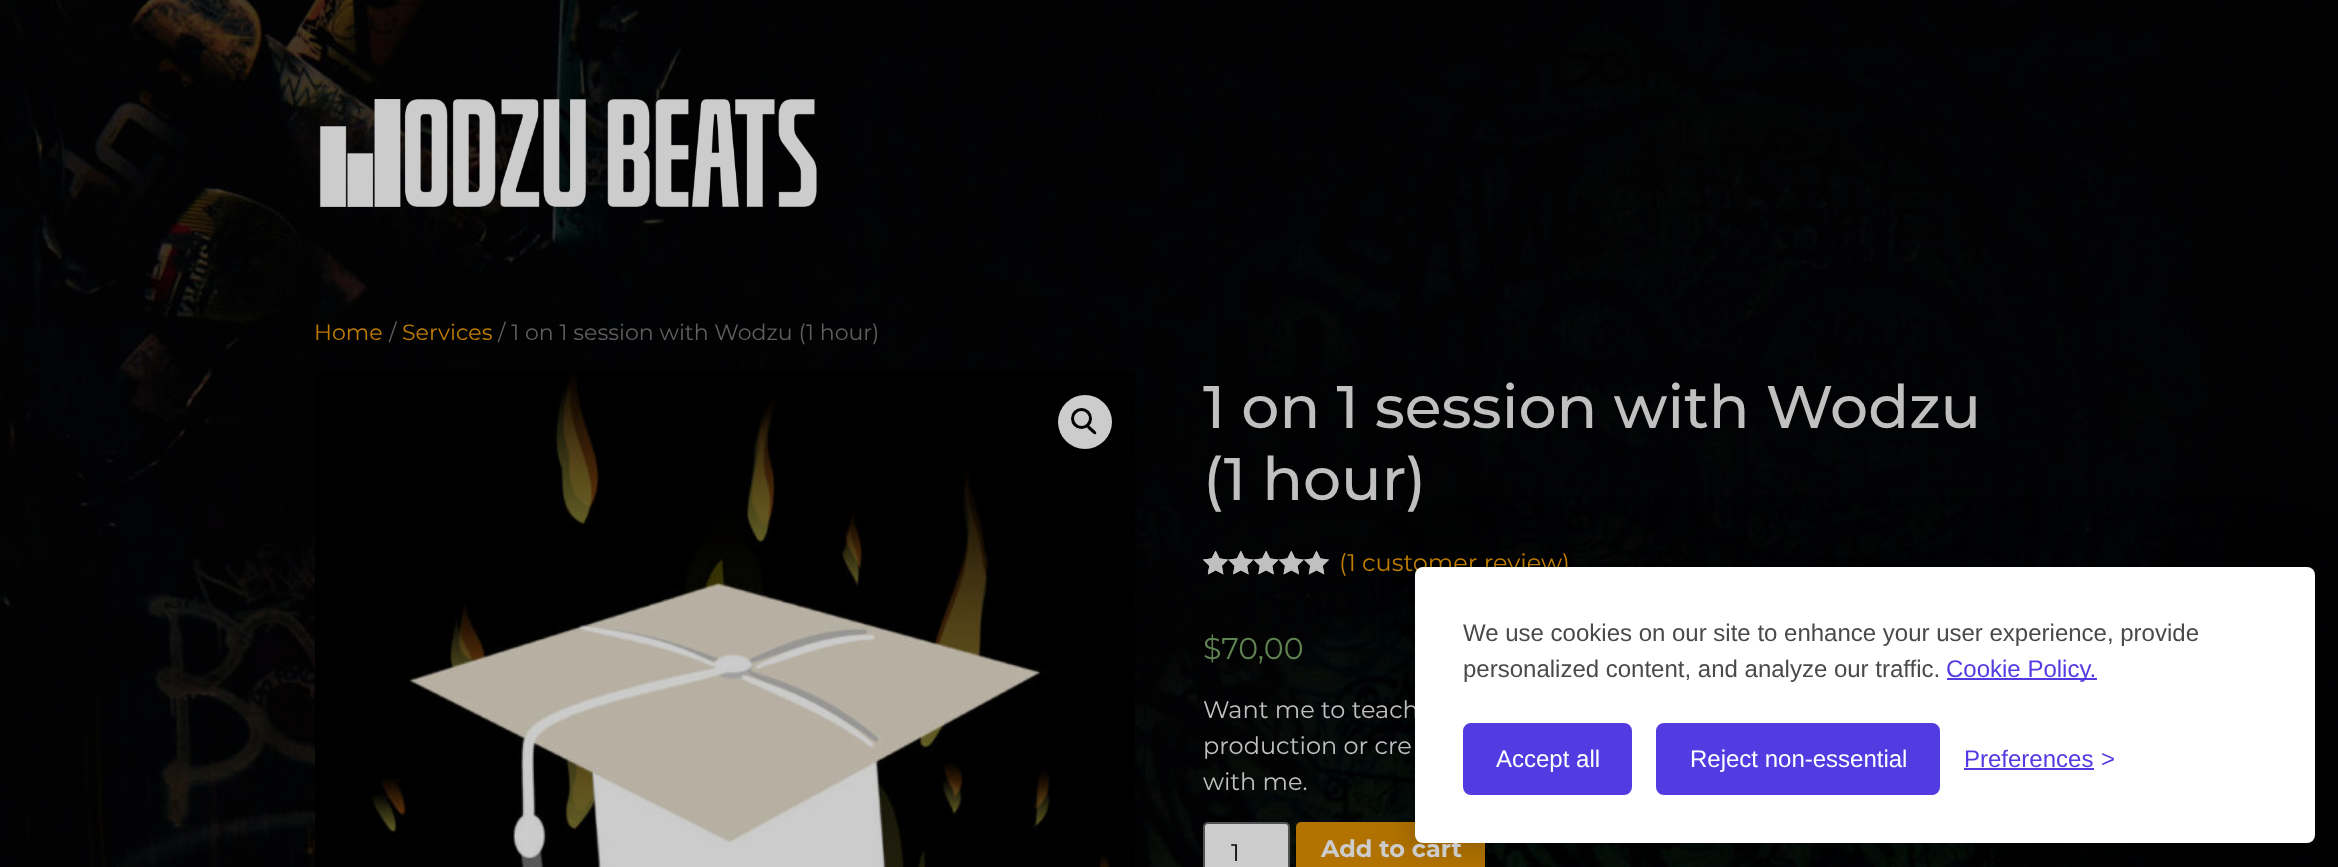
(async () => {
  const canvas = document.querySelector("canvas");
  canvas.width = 2338;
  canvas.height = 867;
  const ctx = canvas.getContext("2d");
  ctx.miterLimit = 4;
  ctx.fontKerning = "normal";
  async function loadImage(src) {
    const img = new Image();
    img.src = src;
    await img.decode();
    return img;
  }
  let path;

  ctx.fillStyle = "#ffffff";
  ctx.fillRect(0, 0, 2338, 867);
  ctx.drawImage(await loadImage("img/1.png"), 0, 0, 2338, 867);
  ctx.drawImage(await loadImage("img/2.png"), 319, 99, 498, 108);
  ctx.drawImage(await loadImage("img/3.png"), 315, 371, 820, 496);
  ctx.fillStyle = "#cccccc";
  ctx.beginPath();
  ctx.arc(1085, 422, 27, 0, Math.PI * 2);
  ctx.fill();
  ctx.beginPath();
  ctx.arc(1081.5, 418.5, 9, 0, Math.PI * 2);
  ctx.strokeStyle = "#000000";
  ctx.lineWidth = 3;
  ctx.stroke();
  ctx.fillStyle = "#000000";
  path = new Path2D("M1087.5 425.5C1089 424 1091.5 428 1092.5 428.5C1093.5 429.5 1097.5 432.5 1096 434C1094 435.5 1091.5 431.5 1090.5 431C1089.5 430 1085.5 427 1087.5 425.5Z");
  ctx.fill(path);
  ctx.drawImage(await loadImage("img/4.png"), 1203, 551, 126, 24);
  ctx.drawImage(await loadImage("img/5.png"), 1203, 551, 126, 24);
  ctx.drawImage(await loadImage("img/6.png"), 1203, 552, 12, 23);
  ctx.fillStyle = "#cccccc";
  ctx.beginPath();
  ctx.roundRect(1204, 823, 85, 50, 4);
  ctx.fill();
  ctx.strokeStyle = "#525252";
  ctx.lineWidth = 2;
  ctx.stroke();
  ctx.fillStyle = "#b27300";
  ctx.beginPath();
  ctx.roundRect(1296, 822, 189, 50, 5);
  ctx.fill();
  ctx.fillStyle = "rgba(0, 0, 0, 0.1)";
  ctx.filter = "blur(37.5px)";
  ctx.beginPath();
  ctx.roundRect(1415, 567, 900, 276, 8);
  ctx.fill();
  ctx.filter = "none";
  ctx.fillStyle = "rgba(0, 0, 0, 0.07)";
  ctx.filter = "blur(7.5px)";
  ctx.beginPath();
  ctx.roundRect(1407, 575, 900, 276, 8);
  ctx.fill();
  ctx.filter = "none";
  ctx.font = "22.1px Montserrat";
  ctx.fillStyle = "#bf7c00";
  ctx.fillText("Home", 314, 340);
  ctx.fillStyle = "#5e5e5e";
  ctx.fillText("/", 389, 340);
  ctx.fillStyle = "#bf7c00";
  ctx.fillText("Services", 402, 340);
  ctx.fillStyle = "#5e5e5e";
  ctx.fillText("/ 1 on 1 session with Wodzu (1 hour)", 498, 340);
  ctx.font = "500 60px Montserrat";
  ctx.fillStyle = "#c0c0c0";
  ctx.fillText("1 on 1 session with Wodzu", 1203, 428);
  ctx.fillText("(1 hour)", 1203, 500);
  ctx.font = "24px Montserrat";
  ctx.fillStyle = "#bf7c00";
  ctx.fillText("(1 customer review)", 1339, 571);
  ctx.font = "30px Montserrat";
  ctx.fillStyle = "#5f8350";
  ctx.fillText("$70,00", 1203, 659);
  ctx.font = "24px Montserrat";
  ctx.fillStyle = "#c0c0c0";
  for (const [text, x, y] of [
    ["Want me to teach", 1203, 718],
    ["production or cre", 1203, 754],
    ["with me.", 1203, 790],
  ]) {
    ctx.fillText(text, x, y);
  }
  ctx.fillStyle = "#000000";
  ctx.fillText("1", 1231, 861);
  ctx.font = "bold 24px Montserrat";
  ctx.fillStyle = "#cccccc";
  ctx.fillText("Add to cart", 1321, 857);
  ctx.fillStyle = "#ffffff";
  ctx.beginPath();
  ctx.roundRect(1415, 567, 900, 276, 8);
  ctx.fill();
  ctx.font = "24px Liberation Sans";
  ctx.fillStyle = "#4b494b";
  ctx.fillText("We use cookies on our site to enhance your user experience, provide", 1463, 641);
  ctx.fillText("personalized content, and analyze our traffic.", 1463, 677);
  ctx.fillStyle = "#533be2";
  ctx.fillRect(1947, 678, 150, 2);
  ctx.fillText("Cookie Policy.", 1946, 677);
  ctx.beginPath();
  ctx.roundRect(1464.5, 724.5, 166, 69, 6.5);
  ctx.fill();
  ctx.strokeStyle = "#533be2";
  ctx.lineWidth = 3;
  ctx.stroke();
  ctx.fillStyle = "#ffffff";
  ctx.fillText("Accept all", 1496, 767);
  ctx.fillStyle = "#533be2";
  ctx.beginPath();
  ctx.roundRect(1657.5, 724.5, 281, 69, 6.5);
  ctx.fill();
  ctx.stroke();
  ctx.fillStyle = "#ffffff";
  ctx.fillText("Reject non-essential", 1690, 767);
  ctx.fillStyle = "#533be2";
  ctx.fillText("Preferences", 1964, 767);
  ctx.fillRect(1964, 768, 130, 2);
  ctx.fillText(">", 2101, 767);
})();
